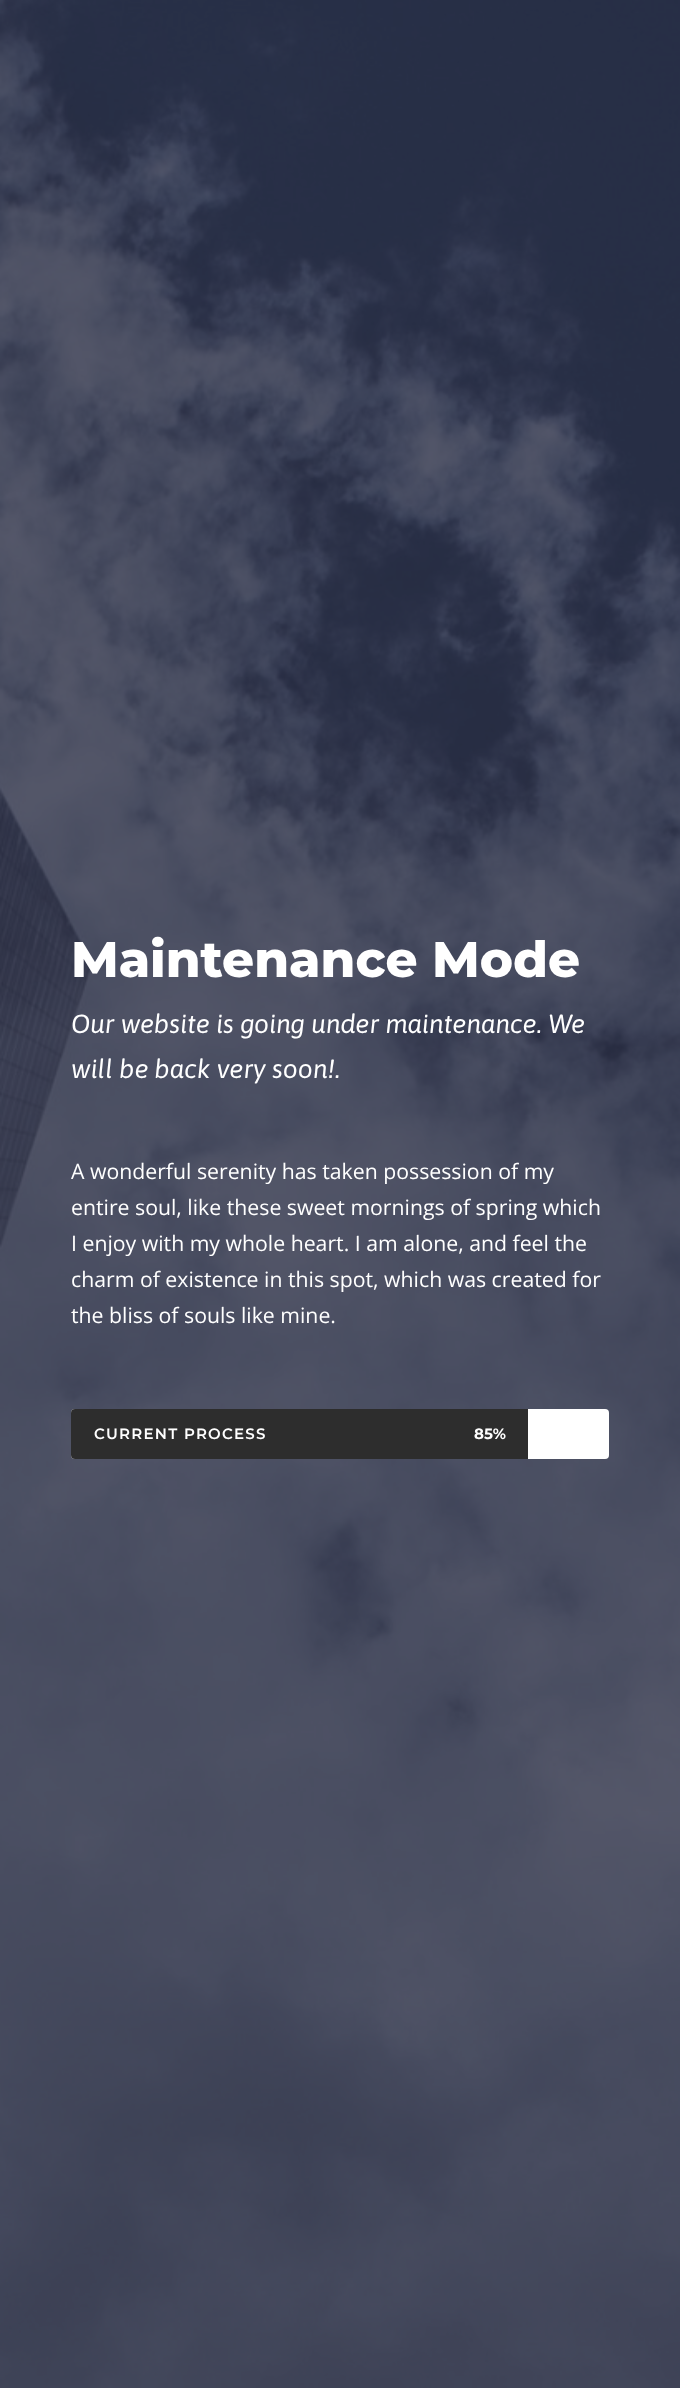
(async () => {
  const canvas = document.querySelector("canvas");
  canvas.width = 680;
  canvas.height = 2388;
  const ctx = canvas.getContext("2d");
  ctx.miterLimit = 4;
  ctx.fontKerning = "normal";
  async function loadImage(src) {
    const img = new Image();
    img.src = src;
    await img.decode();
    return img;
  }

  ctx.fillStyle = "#303147";
  ctx.fillRect(0, 0, 680, 2388);
  ctx.drawImage(await loadImage("img/1.png"), 0, 0, 680, 2388);
  ctx.fillStyle = "#ffffff";
  ctx.beginPath();
  ctx.roundRect(71, 1409, 538, 50, 4);
  ctx.fill();
  ctx.fillStyle = "#2d2d2d";
  ctx.beginPath();
  ctx.roundRect(71, 1409, 457, 50, [4, 0, 0, 4]);
  ctx.fill();
  ctx.font = "800 50px Montserrat";
  ctx.fillStyle = "#ffffff";
  ctx.fillText("Maintenance Mode", 71, 977);
  ctx.font = "italic 26.25px Asap";
  ctx.fillText("Our website is going under maintenance. We", 71, 1033);
  ctx.fillText("will be back very soon!.", 71, 1078);
  ctx.font = "21.25px Open Sans";
  for (const [text, x, y] of [
    ["A wonderful serenity has taken possession of my", 71, 1179],
    ["entire soul, like these sweet mornings of spring which", 71, 1215],
    ["I enjoy with my whole heart. I am alone, and feel the", 71, 1251],
    ["charm of existence in this spot, which was created for", 71, 1287],
    ["the bliss of souls like mine.", 71, 1323],
  ]) {
    ctx.fillText(text, x, y);
  }
  ctx.letterSpacing = "1.25px";
  ctx.font = "600 15px Montserrat";
  ctx.fillText("CURRENT PROCESS", 94, 1439);
  ctx.letterSpacing = "0px";
  ctx.font = "bold 15px Montserrat";
  ctx.fillText("85%", 474, 1439);
})();
